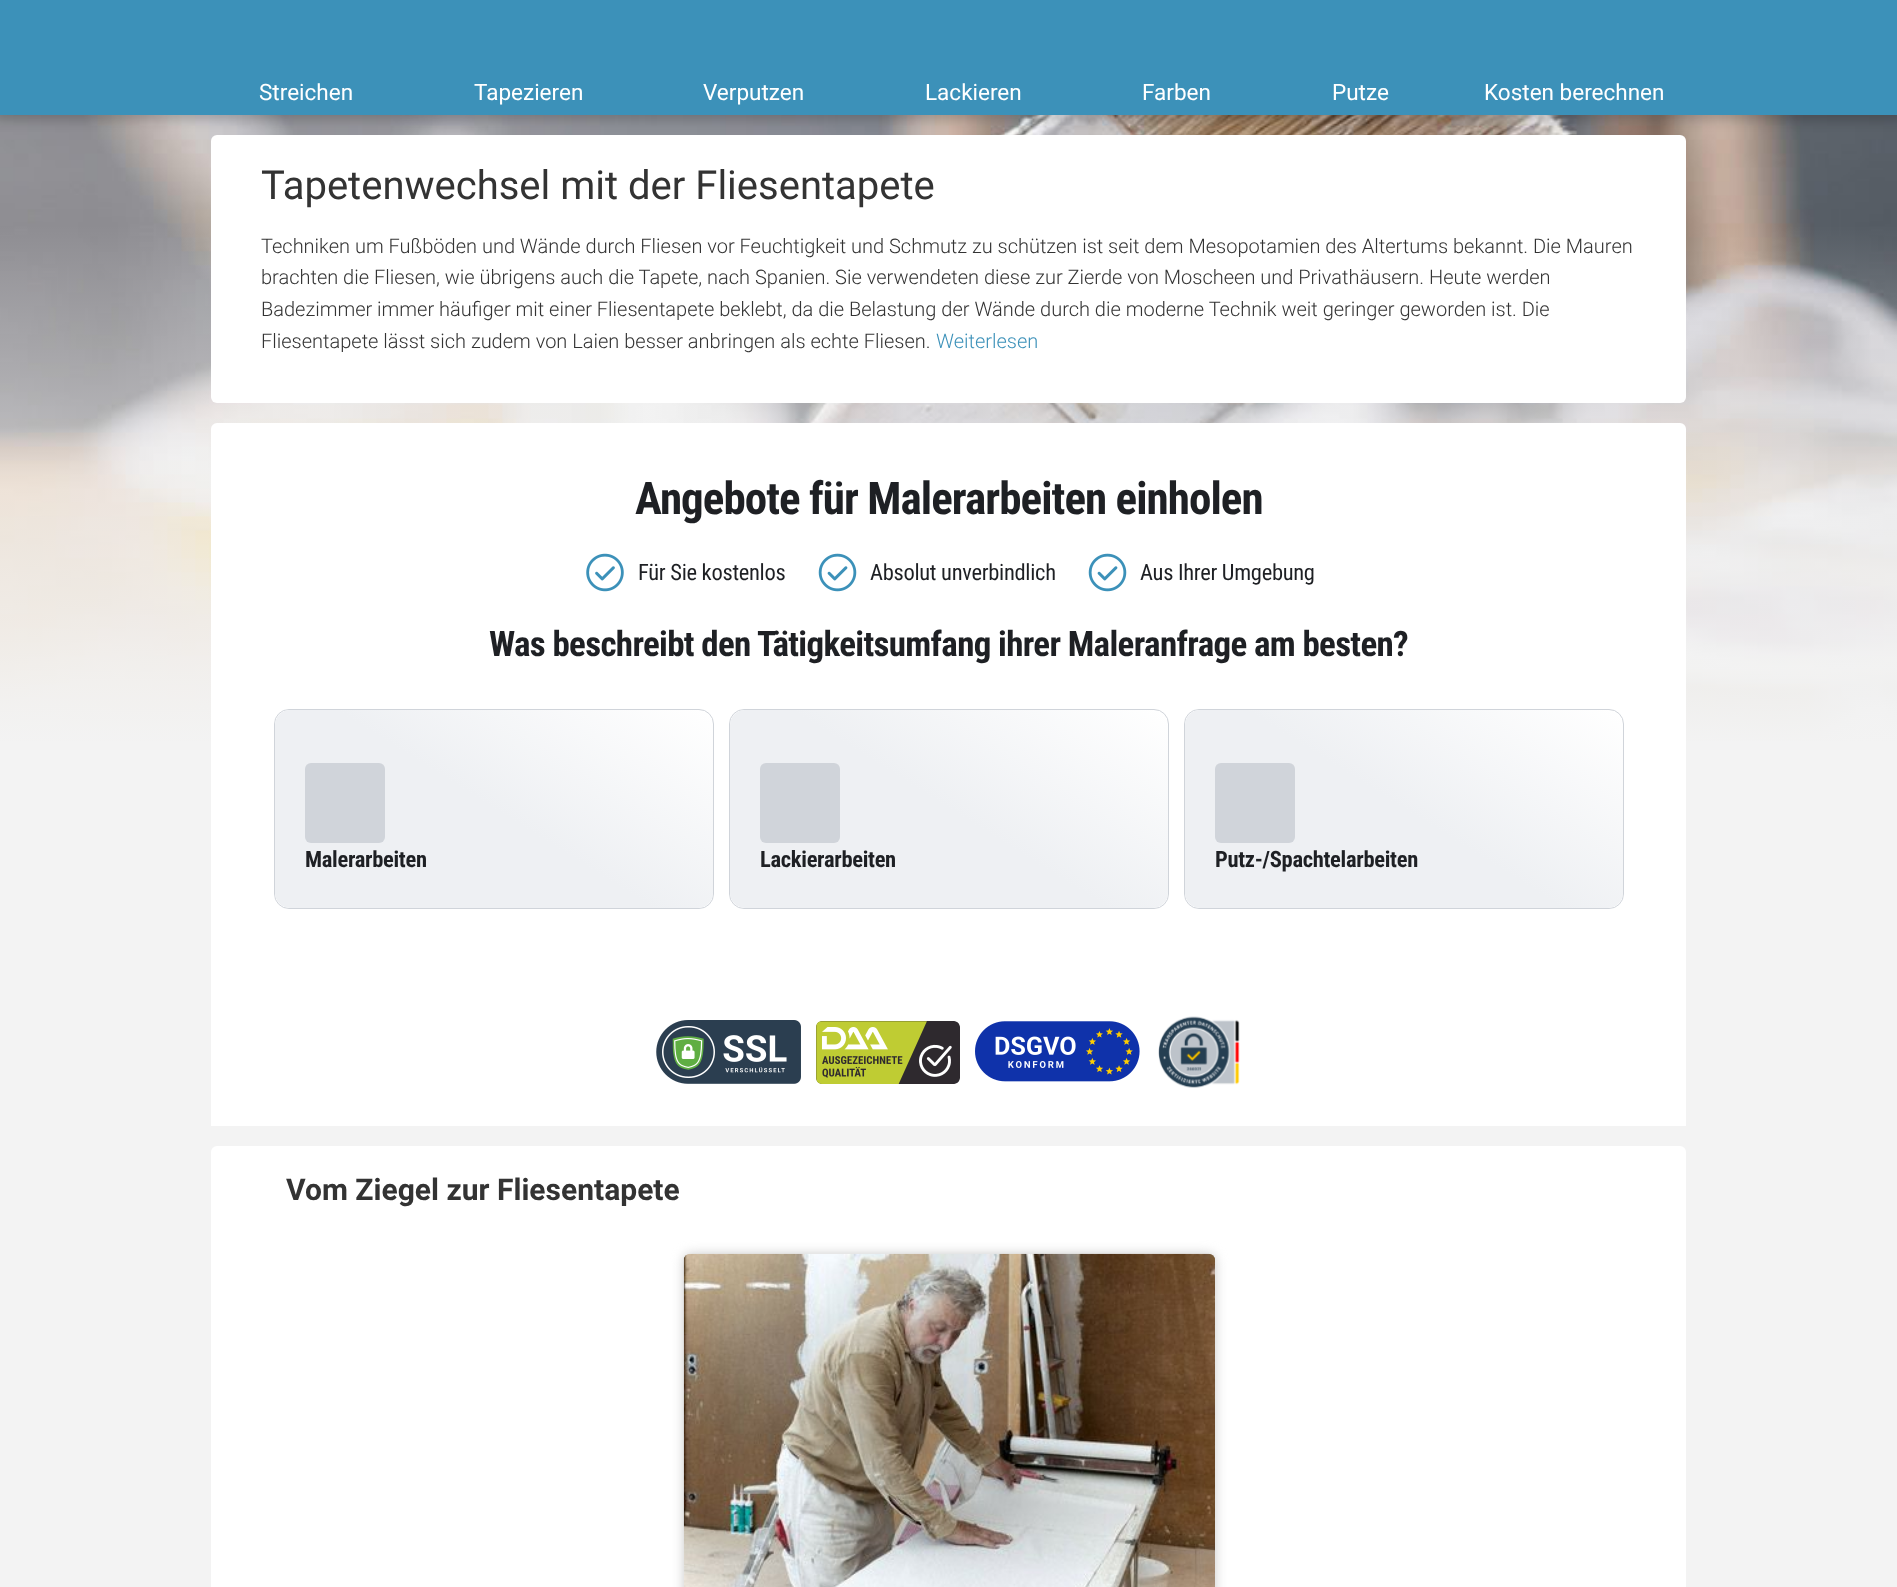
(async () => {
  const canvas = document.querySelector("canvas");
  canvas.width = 1897;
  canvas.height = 1587;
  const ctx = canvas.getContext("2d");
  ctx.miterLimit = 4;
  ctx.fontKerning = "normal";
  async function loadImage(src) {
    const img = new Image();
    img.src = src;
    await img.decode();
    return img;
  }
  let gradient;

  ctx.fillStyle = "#f3f3f3";
  ctx.fillRect(0, 0, 1897, 1587);
  ctx.drawImage(await loadImage("img/1.png"), 0, 115, 1897, 626);
  ctx.fillStyle = "rgba(0, 0, 0, 0.2)";
  ctx.filter = "blur(6px)";
  ctx.beginPath();
  ctx.rect(-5, -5, 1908, 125);
  ctx.fill();
  ctx.filter = "none";
  ctx.fillStyle = "#3c91b9";
  ctx.fillRect(0, 0, 1897, 115);
  ctx.fillStyle = "#ffffff";
  ctx.beginPath();
  ctx.roundRect(211, 135, 1475, 268, 6);
  ctx.fill();
  ctx.beginPath();
  ctx.roundRect(211, 423, 1475, 12, [6, 6, 0, 0]);
  ctx.fill();
  ctx.fillRect(211, 435, 1475, 691);
  ctx.drawImage(await loadImage("img/2.png"), 586, 553, 38, 39);
  ctx.drawImage(await loadImage("img/3.png"), 818, 553, 39, 39);
  ctx.drawImage(await loadImage("img/3.png"), 1088, 553, 39, 39);
  ctx.beginPath();
  ctx.roundRect(274.5, 709.5, 439, 199, 14.5);
  ctx.strokeStyle = "#d0d4da";
  ctx.stroke();
  gradient = ctx.createLinearGradient(600, 639, 388, 978);
  gradient.addColorStop(0.01, "rgba(238, 240, 243, 0)");
  gradient.addColorStop(0.5, "#eef0f3");
  ctx.fillStyle = gradient;
  ctx.beginPath();
  ctx.roundRect(275, 710, 438, 198, 15);
  ctx.fill();
  ctx.fillStyle = "#d0d4da";
  ctx.beginPath();
  ctx.roundRect(305, 763, 80, 80, 6);
  ctx.fill();
  ctx.beginPath();
  ctx.roundRect(729.5, 709.5, 439, 199, 14.5);
  ctx.stroke();
  gradient = ctx.createLinearGradient(1055, 639, 843, 978);
  gradient.addColorStop(0.01, "rgba(238, 240, 243, 0)");
  gradient.addColorStop(0.5, "#eef0f3");
  ctx.fillStyle = gradient;
  ctx.beginPath();
  ctx.roundRect(730, 710, 438, 198, 15);
  ctx.fill();
  ctx.fillStyle = "#d0d4da";
  ctx.beginPath();
  ctx.roundRect(760, 763, 80, 80, 6);
  ctx.fill();
  ctx.beginPath();
  ctx.roundRect(1184.5, 709.5, 439, 199, 14.5);
  ctx.stroke();
  gradient = ctx.createLinearGradient(1510, 639, 1298, 978);
  gradient.addColorStop(0.01, "rgba(238, 240, 243, 0)");
  gradient.addColorStop(0.5, "#eef0f3");
  ctx.fillStyle = gradient;
  ctx.beginPath();
  ctx.roundRect(1185, 710, 438, 198, 15);
  ctx.fill();
  ctx.fillStyle = "#d0d4da";
  ctx.beginPath();
  ctx.roundRect(1215, 763, 80, 80, 6);
  ctx.fill();
  ctx.drawImage(await loadImage("img/4.png"), 656, 1020, 145, 64);
  ctx.drawImage(await loadImage("img/5.png"), 816, 1021, 144, 63);
  ctx.drawImage(await loadImage("img/6.png"), 975, 1021, 165, 61);
  ctx.drawImage(await loadImage("img/7.png"), 1158, 1016, 82, 72);
  ctx.fillStyle = "#ffffff";
  ctx.beginPath();
  ctx.roundRect(211, 1146, 1475, 133, 6);
  ctx.fill();
  ctx.beginPath();
  ctx.roundRect(211, 1254, 1475, 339, 6);
  ctx.fill();
  ctx.fillStyle = "#cacaca";
  ctx.filter = "blur(6px)";
  ctx.beginPath();
  ctx.roundRect(684, 1254, 531, 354, 6);
  ctx.fill();
  ctx.filter = "none";
  ctx.drawImage(await loadImage("img/8.png"), 683, 1253, 532, 334);
  ctx.font = "22.5px Roboto";
  ctx.fillStyle = "#ffffff";
  for (const [text, x, y] of [
    ["Streichen", 259, 100],
    ["Tapezieren", 474, 100],
    ["Verputzen", 703, 100],
    ["Lackieren", 925, 100],
    ["Farben", 1142, 100],
    ["Putze", 1332, 100],
    ["Kosten berechnen", 1484, 100],
  ]) {
    ctx.fillText(text, x, y);
  }
  ctx.font = "40px Roboto";
  ctx.fillStyle = "#333333";
  ctx.fillText("Tapetenwechsel mit der Fliesentapete", 261, 199);
  ctx.font = "300 20px Roboto";
  for (const [text, x, y] of [
    ["Techniken um Fußböden und Wände durch Fliesen vor Feuchtigkeit und Schmutz zu schützen ist seit dem Mesopotamien des Altertums bekannt. Die Mauren", 261, 253],
    ["brachten die Fliesen, wie übrigens auch die Tapete, nach Spanien. Sie verwendeten diese zur Zierde von Moscheen und Privathäusern. Heute werden", 261, 284],
    ["Badezimmer immer häufiger mit einer Fliesentapete beklebt, da die Belastung der Wände durch die moderne Technik weit geringer geworden ist. Die", 261, 316],
    ["Fliesentapete lässt sich zudem von Laien besser anbringen als echte Fliesen.", 261, 348],
  ]) {
    ctx.fillText(text, x, y);
  }
  ctx.fillStyle = "#3c91b9";
  ctx.fillText("Weiterlesen", 936, 348);
  ctx.letterSpacing = "-0.95px";
  ctx.font = "bold 45px Roboto Condensed";
  ctx.fillStyle = "#1e2024";
  ctx.fillText("Angebote für Malerarbeiten einholen", 635, 514);
  ctx.letterSpacing = "-0.3px";
  ctx.font = "22.5px Roboto Condensed";
  for (const [text, x, y] of [
    ["Für Sie kostenlos", 638, 580],
    ["Absolut unverbindlich", 870, 580],
    ["Aus Ihrer Umgebung", 1140, 580],
  ]) {
    ctx.fillText(text, x, y);
  }
  ctx.letterSpacing = "-0.67px";
  ctx.font = "bold 35px Roboto Condensed";
  ctx.fillText("Was beschreibt den Tätigkeitsumfang ihrer Maleranfrage am besten?", 489, 656);
  ctx.letterSpacing = "-0.3px";
  ctx.font = "bold 22.5px Roboto Condensed";
  for (const [text, x, y] of [
    ["Malerarbeiten", 305, 867],
    ["Lackierarbeiten", 760, 867],
    ["Putz-/Spachtelarbeiten", 1215, 867],
  ]) {
    ctx.fillText(text, x, y);
  }
  ctx.letterSpacing = "0px";
  ctx.font = "bold 30px Roboto";
  ctx.fillStyle = "#333333";
  ctx.fillText("Vom Ziegel zur Fliesentapete", 286, 1200);
})();
